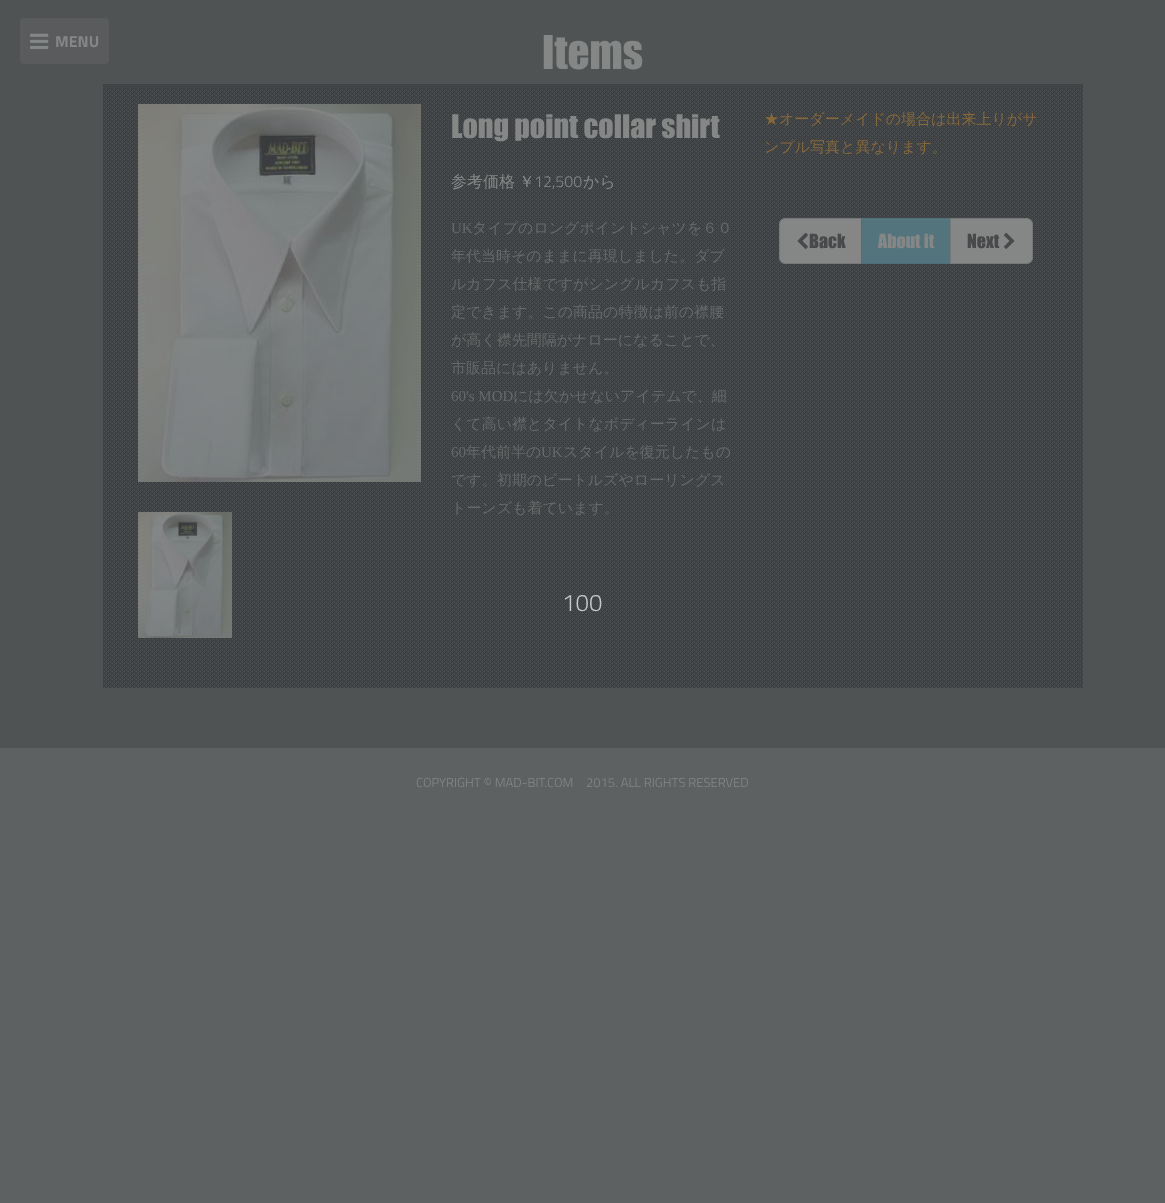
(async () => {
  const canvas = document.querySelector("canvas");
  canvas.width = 1165;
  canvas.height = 1203;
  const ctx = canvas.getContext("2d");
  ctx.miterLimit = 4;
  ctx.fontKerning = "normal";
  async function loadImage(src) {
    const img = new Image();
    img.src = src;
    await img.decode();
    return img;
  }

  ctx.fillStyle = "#5e6162";
  ctx.fillRect(0, 0, 1165, 1203);
  ctx.fillStyle = "#505354";
  ctx.fillRect(0, 0, 1165, 748);
  ctx.fillStyle = "#595b5c";
  ctx.beginPath();
  ctx.roundRect(20, 18, 89, 46, 4);
  ctx.fill();
  ctx.drawImage(await loadImage("img/1.png"), 30, 33, 19, 16);
  ctx.fillStyle = "#474a4c";
  ctx.fillRect(103, 84, 980, 604);
  ctx.drawImage(await loadImage("img/2.png"), 103, 84, 980, 604);
  ctx.drawImage(await loadImage("img/3.png"), 138, 104, 283, 378);
  ctx.drawImage(await loadImage("img/4.png"), 138, 512, 94, 126);
  ctx.fillStyle = "#858787";
  ctx.beginPath();
  ctx.roundRect(779.5, 218.5, 82, 45, [5.5, 0, 0, 5.5]);
  ctx.fill();
  ctx.strokeStyle = "#757778";
  ctx.stroke();
  ctx.drawImage(await loadImage("img/5.png"), 797, 232, 11, 17);
  ctx.fillStyle = "#53747d";
  ctx.fillRect(862, 220, 88, 43);
  ctx.fillStyle = "#5b767f";
  ctx.fillRect(862, 219, 88, 1);
  ctx.strokeStyle = "#4d717c";
  ctx.strokeRect(861.5, 218.5, 89, 45);
  ctx.fillStyle = "#858787";
  ctx.beginPath();
  ctx.roundRect(950.5, 218.5, 82, 45, [0, 5.5, 5.5, 0]);
  ctx.fill();
  ctx.strokeStyle = "#757778";
  ctx.stroke();
  ctx.drawImage(await loadImage("img/6.png"), 1003, 232, 12, 17);
  ctx.font = "bold 16px Titillium Web";
  ctx.fillText("MENU", 55, 47);
  ctx.font = "43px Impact";
  ctx.fillText("Items", 542, 69);
  ctx.font = "30px Impact";
  ctx.fillText("Long point collar shirt", 451, 138);
  ctx.wordSpacing = "-1px";
  ctx.font = "500 16px WenQuanYi Zen Hei";
  ctx.fillText("参考価格 ￥", 451, 187);
  ctx.wordSpacing = "0px";
  ctx.font = "300 16px Titillium Web";
  ctx.fillText("12,500", 534, 187);
  ctx.font = "500 16px WenQuanYi Zen Hei";
  ctx.fillText("から", 583, 187);
  ctx.font = "15px Liberation Serif";
  ctx.fillStyle = "#666869";
  ctx.fillText("UK", 451, 233);
  ctx.font = "500 15px WenQuanYi Zen Hei";
  for (const [text, x, y] of [
    ["タイプのロングポイントシャツを６０", 472, 233],
    ["年代当時そのままに再現しました。ダブ", 451, 261],
    ["ルカフス仕様ですがシングルカフスも指", 451, 289],
    ["定できます。この商品の特徴は前の襟腰", 451, 317],
    ["が高く襟先間隔がナローになることで、", 451, 345],
    ["市販品にはありません。", 451, 373],
  ]) {
    ctx.fillText(text, x, y);
  }
  ctx.font = "15px Liberation Serif";
  ctx.fillText("60's MOD", 451, 401);
  ctx.font = "500 15px WenQuanYi Zen Hei";
  ctx.fillText("には欠かせないアイテムで、細", 513, 401);
  ctx.fillText("くて高い襟とタイトなボディーラインは", 451, 429);
  ctx.font = "15px Liberation Serif";
  ctx.fillText("60", 451, 457);
  ctx.font = "500 15px WenQuanYi Zen Hei";
  ctx.fillText("年代前半の", 466, 457);
  ctx.font = "15px Liberation Serif";
  ctx.fillText("UK", 541, 457);
  ctx.font = "500 15px WenQuanYi Zen Hei";
  for (const [text, x, y] of [
    ["スタイルを復元したもの", 563, 457],
    ["です。初期のビートルズやローリングス", 451, 485],
    ["トーンズも着ています。", 451, 513],
  ]) {
    ctx.fillText(text, x, y);
  }
  ctx.fillStyle = "#85683b";
  ctx.fillText("★オーダーメイドの場合は出来上りがサ", 764, 124);
  ctx.fillText("ンプル写真と異なります。", 764, 152);
  ctx.font = "18px Impact";
  ctx.fillStyle = "#47494a";
  ctx.fillText("Back", 809, 248);
  ctx.fillStyle = "#858787";
  ctx.fillText("About it", 878, 248);
  ctx.fillStyle = "#47494a";
  ctx.fillText("Next", 967, 248);
  ctx.font = "300 24px Titillium Web";
  ctx.fillStyle = "#c6c7c8";
  ctx.fillText("100", 562, 611);
  ctx.font = "300 13px Titillium Web";
  ctx.fillStyle = "#858787";
  ctx.fillText("COPYRIGHT © MAD-BIT.COM", 416, 787);
  ctx.fillText("2015. ALL RIGHTS RESERVED", 586, 787);
})();
